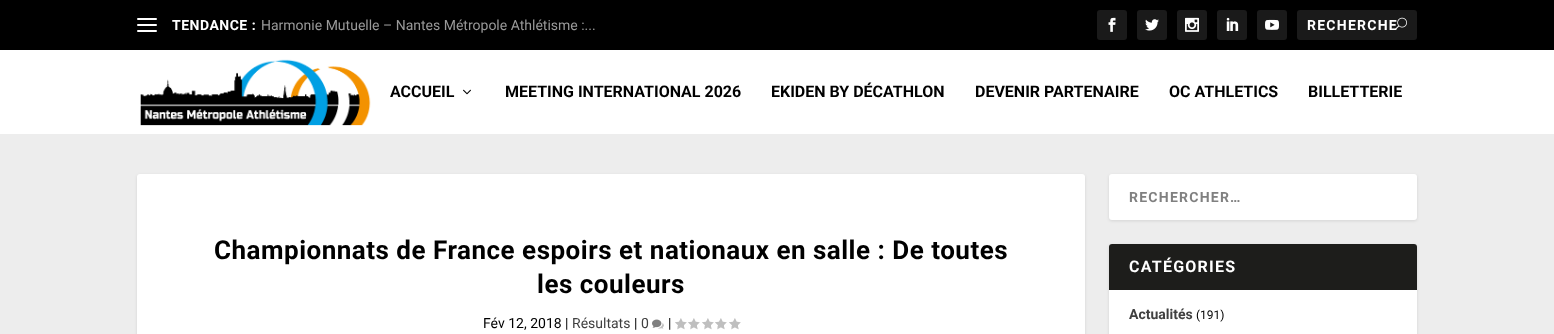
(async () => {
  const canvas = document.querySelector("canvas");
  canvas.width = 1554;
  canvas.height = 334;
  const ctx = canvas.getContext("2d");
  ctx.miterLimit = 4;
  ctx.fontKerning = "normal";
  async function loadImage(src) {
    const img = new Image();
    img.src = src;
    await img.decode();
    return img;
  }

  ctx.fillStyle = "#ededed";
  ctx.fillRect(0, 0, 1554, 334);
  ctx.fillStyle = "#000000";
  ctx.fillRect(0, 0, 1554, 50);
  ctx.fillStyle = "#ffffff";
  ctx.beginPath();
  ctx.roundRect(137, 18, 20, 2, 1);
  ctx.fill();
  ctx.beginPath();
  ctx.roundRect(137, 24, 20, 2, 1);
  ctx.fill();
  ctx.beginPath();
  ctx.roundRect(137, 30, 20, 2, 1);
  ctx.fill();
  ctx.fillStyle = "#1a1a1a";
  ctx.beginPath();
  ctx.roundRect(1097, 10, 30, 30, 3);
  ctx.fill();
  ctx.drawImage(await loadImage("img/1.png"), 1108, 17, 8, 15);
  ctx.beginPath();
  ctx.roundRect(1137, 10, 30, 30, 3);
  ctx.fill();
  ctx.drawImage(await loadImage("img/2.png"), 1145, 19, 14, 12);
  ctx.beginPath();
  ctx.roundRect(1177, 10, 30, 30, 3);
  ctx.fill();
  ctx.drawImage(await loadImage("img/3.png"), 1185, 17, 14, 15);
  ctx.beginPath();
  ctx.roundRect(1217, 10, 30, 30, 3);
  ctx.fill();
  ctx.drawImage(await loadImage("img/4.png"), 1226, 17, 13, 14);
  ctx.beginPath();
  ctx.roundRect(1257, 10, 30, 30, 3);
  ctx.fill();
  ctx.drawImage(await loadImage("img/5.png"), 1265, 19, 14, 11);
  ctx.beginPath();
  ctx.roundRect(1297, 10, 120, 30, 3);
  ctx.fill();
  ctx.fillStyle = "#ffffff";
  ctx.fillRect(0, 50, 1554, 84);
  ctx.drawImage(await loadImage("img/7.png"), 140, 59, 231, 67);
  ctx.drawImage(await loadImage("img/8.png"), 463, 89, 8, 6);
  ctx.fillStyle = "rgba(0, 0, 0, 0.1)";
  ctx.filter = "blur(1.5px)";
  ctx.beginPath();
  ctx.roundRect(137, 175, 948, 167, 3);
  ctx.fill();
  ctx.filter = "none";
  ctx.fillStyle = "#ffffff";
  ctx.beginPath();
  ctx.roundRect(137, 174, 948, 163, 3);
  ctx.fill();
  ctx.drawImage(await loadImage("img/9.png"), 652, 319, 12, 10);
  ctx.drawImage(await loadImage("img/10.png"), 675, 318, 12, 12);
  ctx.drawImage(await loadImage("img/10.png"), 688, 318, 12, 12);
  ctx.drawImage(await loadImage("img/10.png"), 702, 318, 12, 12);
  ctx.drawImage(await loadImage("img/10.png"), 715, 318, 12, 12);
  ctx.drawImage(await loadImage("img/10.png"), 729, 318, 12, 12);
  ctx.fillStyle = "rgba(0, 0, 0, 0.1)";
  ctx.filter = "blur(1.5px)";
  ctx.beginPath();
  ctx.roundRect(1109, 175, 308, 46, 3);
  ctx.fill();
  ctx.filter = "none";
  ctx.fillStyle = "#ffffff";
  ctx.beginPath();
  ctx.roundRect(1109, 174, 308, 46, 3);
  ctx.fill();
  ctx.fillStyle = "rgba(0, 0, 0, 0.1)";
  ctx.filter = "blur(1.5px)";
  ctx.beginPath();
  ctx.roundRect(1109, 245, 308, 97, 3);
  ctx.fill();
  ctx.filter = "none";
  ctx.fillStyle = "#ffffff";
  ctx.beginPath();
  ctx.roundRect(1109, 244, 308, 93, 3);
  ctx.fill();
  ctx.fillStyle = "#1d1d1b";
  ctx.beginPath();
  ctx.roundRect(1109, 244, 308, 46, [3, 3, 0, 0]);
  ctx.fill();
  ctx.letterSpacing = "0.5px";
  ctx.font = "bold 14px Roboto";
  ctx.fillStyle = "#ffffff";
  ctx.fillText("TENDANCE :", 172, 30);
  ctx.letterSpacing = "0px";
  ctx.font = "14px Roboto";
  ctx.fillStyle = "#999999";
  ctx.fillText("Harmonie Mutuelle – Nantes Métropole Athlétisme :...", 261, 30);
  ctx.letterSpacing = "1.25px";
  ctx.font = "bold 14px Roboto";
  ctx.fillStyle = "#ffffff";
  ctx.fillText("RECHERCHE", 1307, 30);
  ctx.drawImage(await loadImage("img/6.png"), 1395, 17, 12, 13);
  ctx.letterSpacing = "0px";
  ctx.font = "bold 16px Roboto";
  ctx.fillStyle = "#000000";
  for (const [text, x, y] of [
    ["ACCUEIL", 390, 97],
    ["MEETING INTERNATIONAL 2026", 505, 97],
    ["EKIDEN BY DÉCATHLON", 771, 97],
    ["DEVENIR PARTENAIRE", 975, 97],
    ["OC ATHLETICS", 1169, 97],
    ["BILLETTERIE", 1308, 97],
  ]) {
    ctx.fillText(text, x, y);
  }
  ctx.letterSpacing = "0.5px";
  ctx.font = "bold 26px Roboto";
  ctx.fillText("Championnats de France espoirs et nationaux en salle : De toutes", 214, 259);
  ctx.fillText("les couleurs", 537, 293);
  ctx.letterSpacing = "0px";
  ctx.font = "14px Roboto";
  ctx.fillText("Fév 12, 2018 |", 483, 328);
  ctx.fillStyle = "#404040";
  ctx.fillText("Résultats", 572, 328);
  ctx.fillStyle = "#000000";
  ctx.fillText("|", 634, 328);
  ctx.fillStyle = "#404040";
  ctx.fillText("0", 641, 328);
  ctx.fillStyle = "#000000";
  ctx.fillText("|", 668, 328);
  ctx.letterSpacing = "1.25px";
  ctx.font = "bold 14px Roboto";
  ctx.fillStyle = "#808080";
  ctx.fillText("RECHERCHER…", 1129, 202);
  ctx.font = "bold 16px Roboto";
  ctx.fillStyle = "#ffffff";
  ctx.fillText("CATÉGORIES", 1129, 272);
  ctx.letterSpacing = "0px";
  ctx.font = "bold 14px Roboto";
  ctx.fillStyle = "#404040";
  ctx.fillText("Actualités", 1129, 319);
  ctx.font = "12px Roboto";
  ctx.fillStyle = "#000000";
  ctx.fillText("(191)", 1196, 319);
})();
